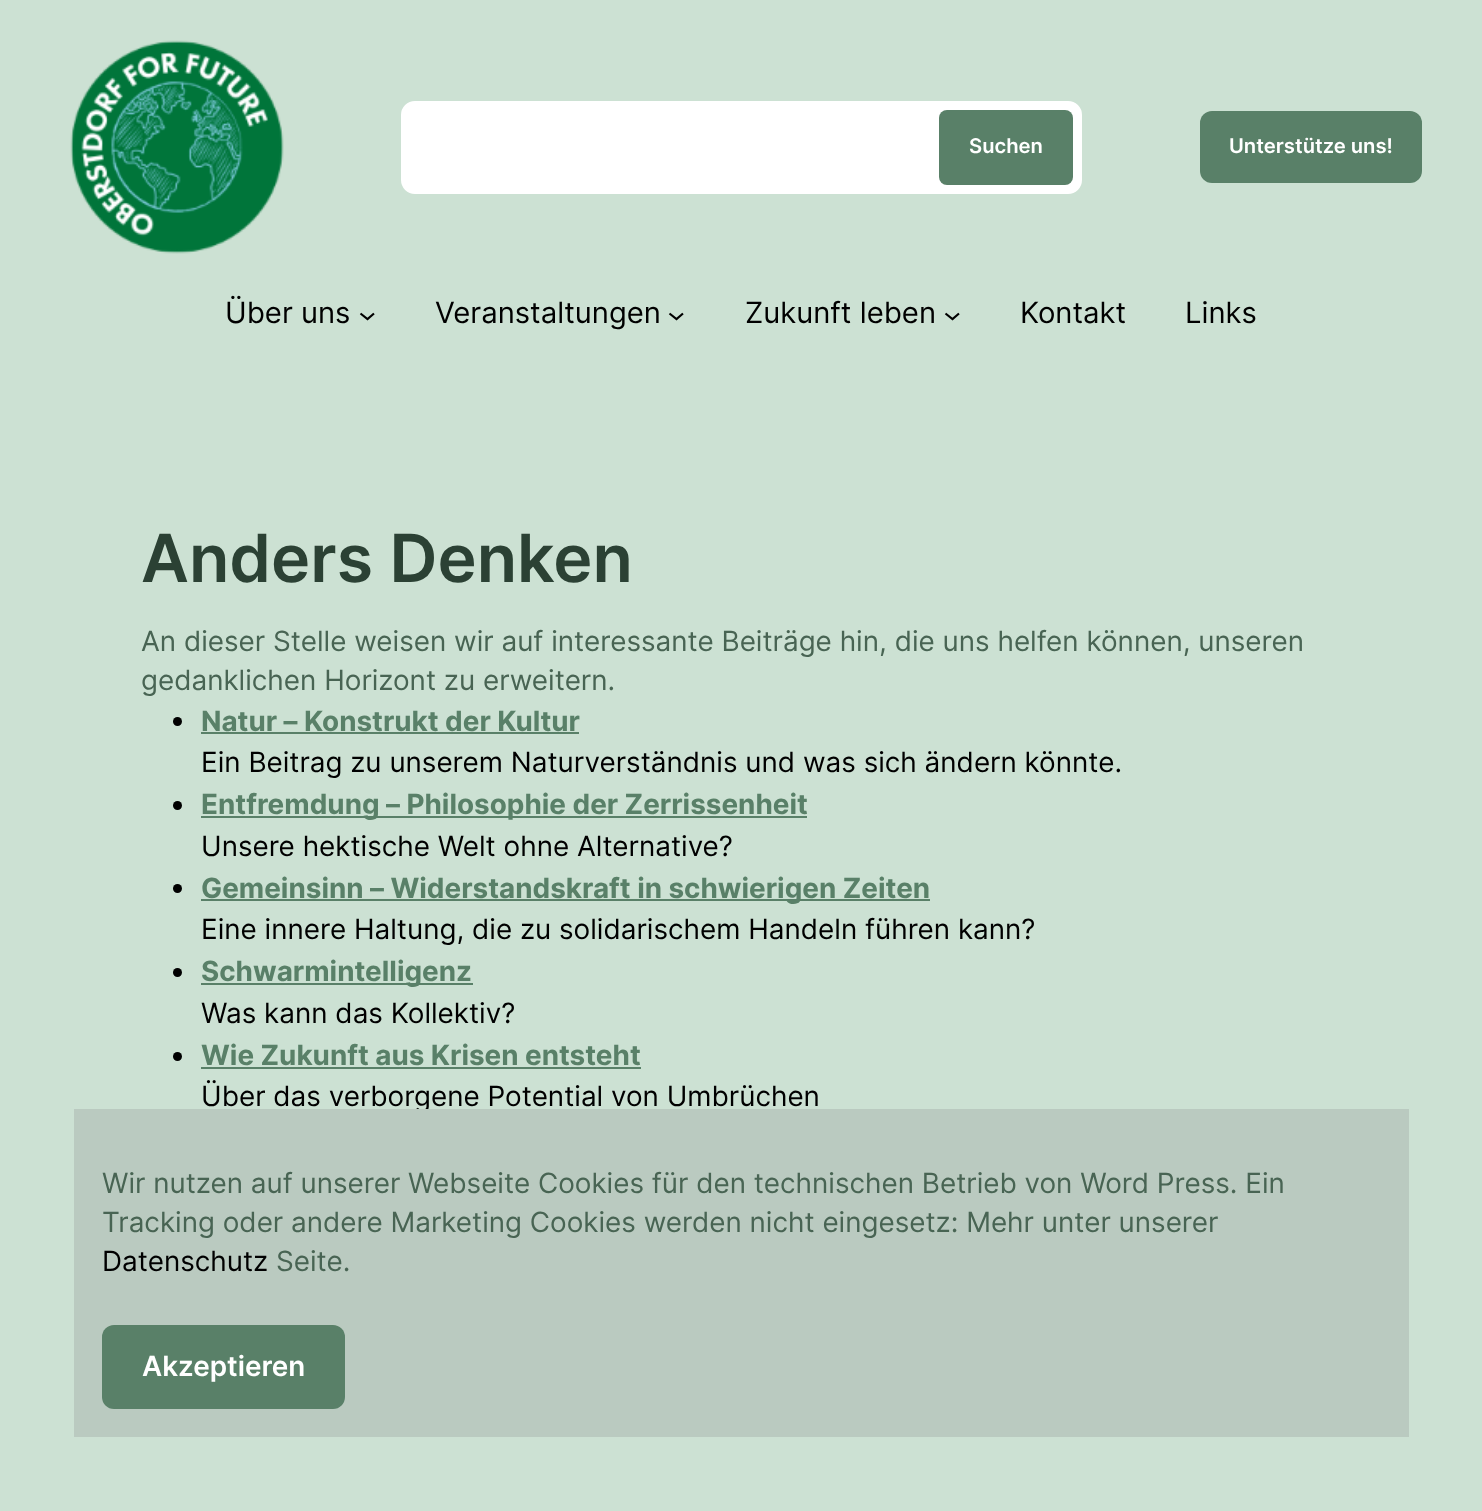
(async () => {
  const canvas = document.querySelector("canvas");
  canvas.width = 1482;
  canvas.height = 1511;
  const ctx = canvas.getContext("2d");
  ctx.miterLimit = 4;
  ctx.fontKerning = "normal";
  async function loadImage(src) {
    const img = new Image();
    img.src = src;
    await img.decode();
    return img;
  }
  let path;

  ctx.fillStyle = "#cce1d3";
  ctx.fillRect(0, 0, 1482, 1511);
  ctx.drawImage(await loadImage("img/1.png"), 70, 40, 214, 214);
  ctx.fillStyle = "#ffffff";
  ctx.beginPath();
  ctx.roundRect(402.5, 102.5, 678, 90, 12.5);
  ctx.fill();
  ctx.strokeStyle = "#ffffff";
  ctx.lineWidth = 3;
  ctx.stroke();
  ctx.fillStyle = "#598068";
  ctx.beginPath();
  ctx.roundRect(939, 110, 134, 75, 8);
  ctx.fill();
  ctx.beginPath();
  ctx.roundRect(1200, 111, 222, 72, 12);
  ctx.fill();
  path = new Path2D("M360.5 313.5L367.5 319L374 313.5");
  ctx.strokeStyle = "#000000";
  ctx.lineWidth = 2.2;
  ctx.stroke(path);
  path = new Path2D("M669.5 313.5L676.5 319L683 313.5");
  ctx.stroke(path);
  path = new Path2D("M945.5 313.5L952.5 319L959 313.5");
  ctx.stroke(path);
  ctx.fillStyle = "#000000";
  ctx.beginPath();
  ctx.arc(177.5, 721.5, 4.5, 0, Math.PI * 2);
  ctx.fill();
  ctx.fillStyle = "#598068";
  ctx.fillRect(201, 732, 378, 2);
  ctx.fillStyle = "#000000";
  ctx.beginPath();
  ctx.arc(177.5, 805.5, 4.5, 0, Math.PI * 2);
  ctx.fill();
  ctx.fillStyle = "#598068";
  ctx.fillRect(201, 816, 606, 2);
  ctx.fillStyle = "#000000";
  ctx.beginPath();
  ctx.arc(177.5, 888.5, 4.5, 0, Math.PI * 2);
  ctx.fill();
  ctx.fillStyle = "#598068";
  ctx.fillRect(201, 899, 729, 2);
  ctx.fillStyle = "#000000";
  ctx.beginPath();
  ctx.arc(177.5, 972.5, 4.5, 0, Math.PI * 2);
  ctx.fill();
  ctx.fillStyle = "#598068";
  ctx.fillRect(201, 983, 272, 2);
  ctx.fillStyle = "#000000";
  ctx.beginPath();
  ctx.arc(177.5, 1056.5, 4.5, 0, Math.PI * 2);
  ctx.fill();
  ctx.fillStyle = "#598068";
  ctx.fillRect(201, 1067, 440, 2);
  ctx.font = "600 20.25px Inter";
  ctx.fillStyle = "#ffffff";
  ctx.fillText("Suchen", 969, 153);
  ctx.fillText("Unterstütze uns!", 1229, 153);
  ctx.font = "29.25px Inter";
  ctx.fillStyle = "#000000";
  for (const [text, x, y] of [
    ["Über uns", 225, 323],
    ["Veranstaltungen", 435, 323],
    ["Zukunft leben", 745, 323],
    ["Kontakt", 1020, 323],
    ["Links", 1185, 323],
  ]) {
    ctx.fillText(text, x, y);
  }
  ctx.font = "600 66.25px Inter";
  ctx.fillStyle = "#2b4134";
  ctx.fillText("Anders Denken", 141, 582);
  ctx.font = "27.85px Inter";
  ctx.fillStyle = "#486453";
  ctx.fillText("An dieser Stelle weisen wir auf interessante Beiträge hin, die uns helfen können, unseren", 141, 651);
  ctx.fillText("gedanklichen Horizont zu erweitern.", 141, 690);
  ctx.font = "bold 27.85px Inter";
  ctx.fillStyle = "#598068";
  ctx.fillText("Natur – Konstrukt der Kultur", 201, 731);
  ctx.font = "27.85px Inter";
  ctx.fillStyle = "#000000";
  ctx.fillText("Ein Beitrag zu unserem Naturverständnis und was sich ändern könnte.", 201, 772);
  ctx.font = "bold 27.85px Inter";
  ctx.fillStyle = "#598068";
  ctx.fillText("Entfremdung – Philosophie der Zerrissenheit", 201, 814);
  ctx.font = "27.85px Inter";
  ctx.fillStyle = "#000000";
  ctx.fillText("Unsere hektische Welt ohne Alternative?", 201, 856);
  ctx.font = "bold 27.85px Inter";
  ctx.fillStyle = "#598068";
  ctx.fillText("Gemeinsinn – Widerstandskraft in schwierigen Zeiten", 201, 898);
  ctx.font = "27.85px Inter";
  ctx.fillStyle = "#000000";
  ctx.fillText("Eine innere Haltung, die zu solidarischem Handeln führen kann?", 201, 939);
  ctx.font = "bold 27.85px Inter";
  ctx.fillStyle = "#598068";
  ctx.fillText("Schwarmintelligenz", 201, 981);
  ctx.font = "27.85px Inter";
  ctx.fillStyle = "#000000";
  ctx.fillText("Was kann das Kollektiv?", 201, 1023);
  ctx.font = "bold 27.85px Inter";
  ctx.fillStyle = "#598068";
  ctx.fillText("Wie Zukunft aus Krisen entsteht", 201, 1065);
  ctx.font = "27.85px Inter";
  ctx.fillStyle = "#000000";
  ctx.fillText("Über das verborgene Potential von Umbrüchen", 201, 1106);
  ctx.fillStyle = "#bacac0";
  ctx.fillRect(74, 1109, 1335, 328);
  ctx.fillStyle = "#486453";
  ctx.fillText("Wir nutzen auf unserer Webseite Cookies für den technischen Betrieb von Word Press. Ein", 102, 1193);
  ctx.fillText("Tracking oder andere Marketing Cookies werden nicht eingesetz: Mehr unter unserer", 102, 1232);
  ctx.fillStyle = "#000000";
  ctx.fillText("Datenschutz", 102, 1271);
  ctx.fillStyle = "#486453";
  ctx.fillText("Seite.", 276, 1271);
  ctx.fillStyle = "#598068";
  ctx.beginPath();
  ctx.roundRect(102, 1325, 243, 84, 12);
  ctx.fill();
  ctx.font = "600 27.85px Inter";
  ctx.fillStyle = "#ffffff";
  ctx.fillText("Akzeptieren", 142, 1376);
})();
